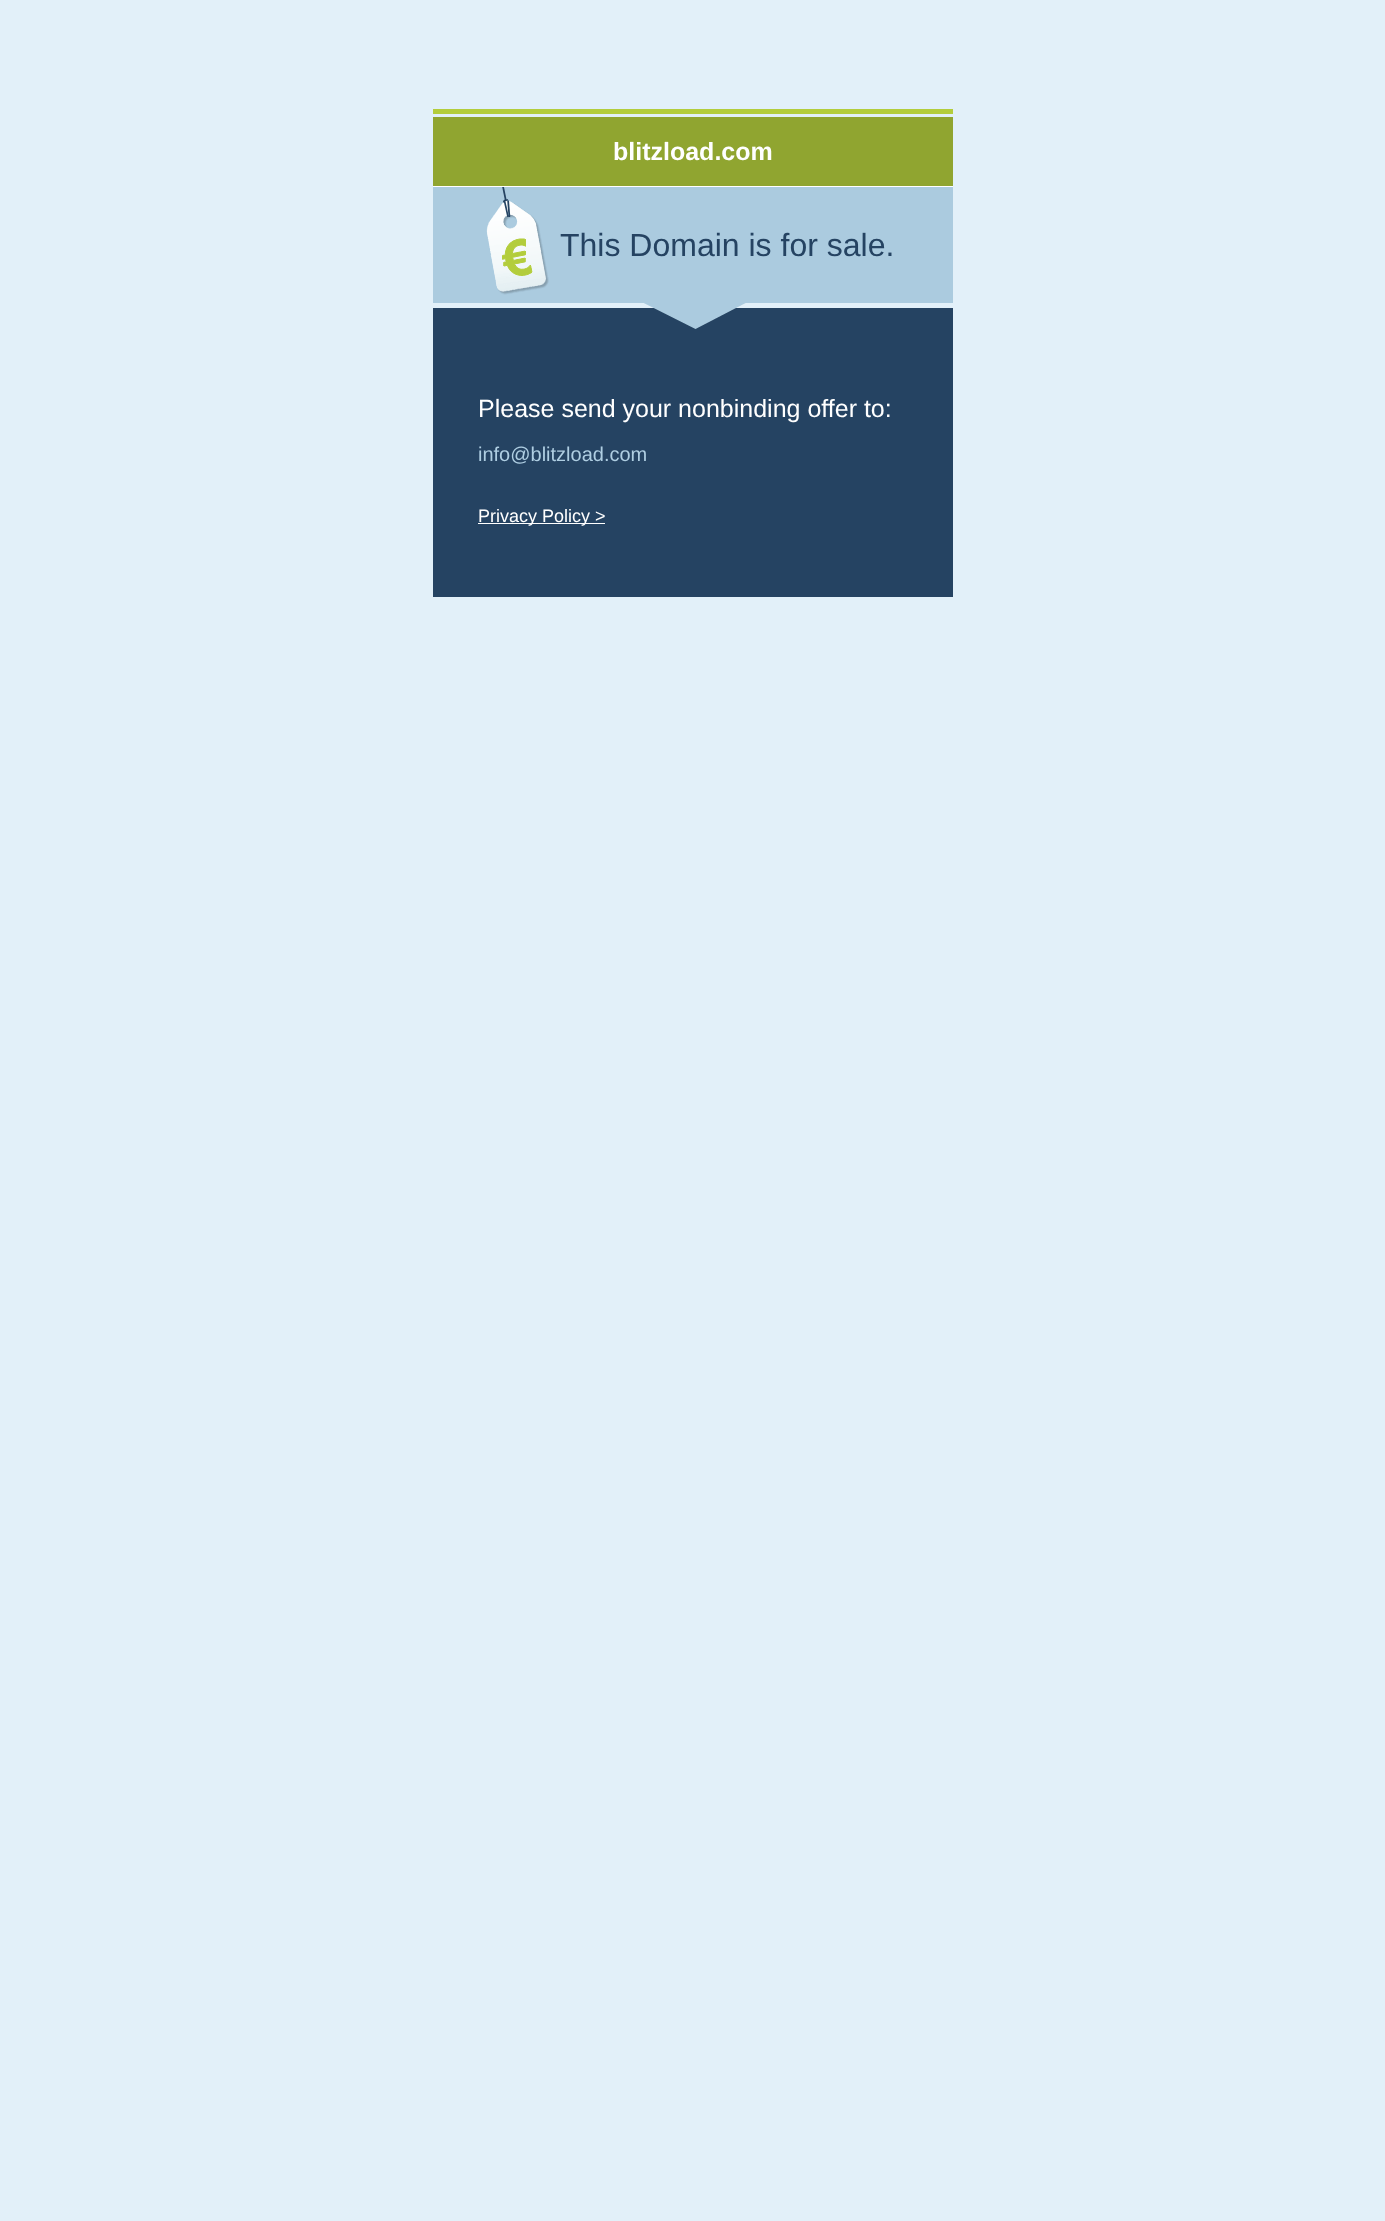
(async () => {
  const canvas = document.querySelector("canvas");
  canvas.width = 1385;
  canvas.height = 2221;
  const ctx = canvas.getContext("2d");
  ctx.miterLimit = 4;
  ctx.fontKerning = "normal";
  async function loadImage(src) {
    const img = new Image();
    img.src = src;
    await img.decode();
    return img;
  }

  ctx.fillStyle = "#e2f0f9";
  ctx.fillRect(0, 0, 1385, 2221);
  for (const [x, y, w, h, color] of [
    [433, 109, 520, 5, "#b3cd3c"],
    [433, 117, 520, 69, "#90a530"],
    [433, 186, 520, 1, "#ffffff"],
  ]) {
    ctx.fillStyle = color;
    ctx.fillRect(x, y, w, h);
  }
  ctx.drawImage(await loadImage("img/1.png"), 433, 187, 520, 410);
  ctx.fillRect(478, 523, 127, 1);
  ctx.font = "bold 25px Liberation Sans";
  ctx.fillText("blitzload.com", 613, 160);
  ctx.font = "32px Liberation Sans";
  ctx.fillStyle = "#254362";
  ctx.fillText("This Domain is for sale.", 560, 256);
  ctx.font = "25px Liberation Sans";
  ctx.fillStyle = "#ffffff";
  ctx.fillText("Please send your nonbinding offer to:", 478, 417);
  ctx.font = "20px Liberation Sans";
  ctx.fillStyle = "#afcee2";
  ctx.fillText("info@blitzload.com", 478, 461);
  ctx.font = "18px Liberation Sans";
  ctx.fillStyle = "#ffffff";
  ctx.fillText("Privacy Policy >", 478, 522);
})();
